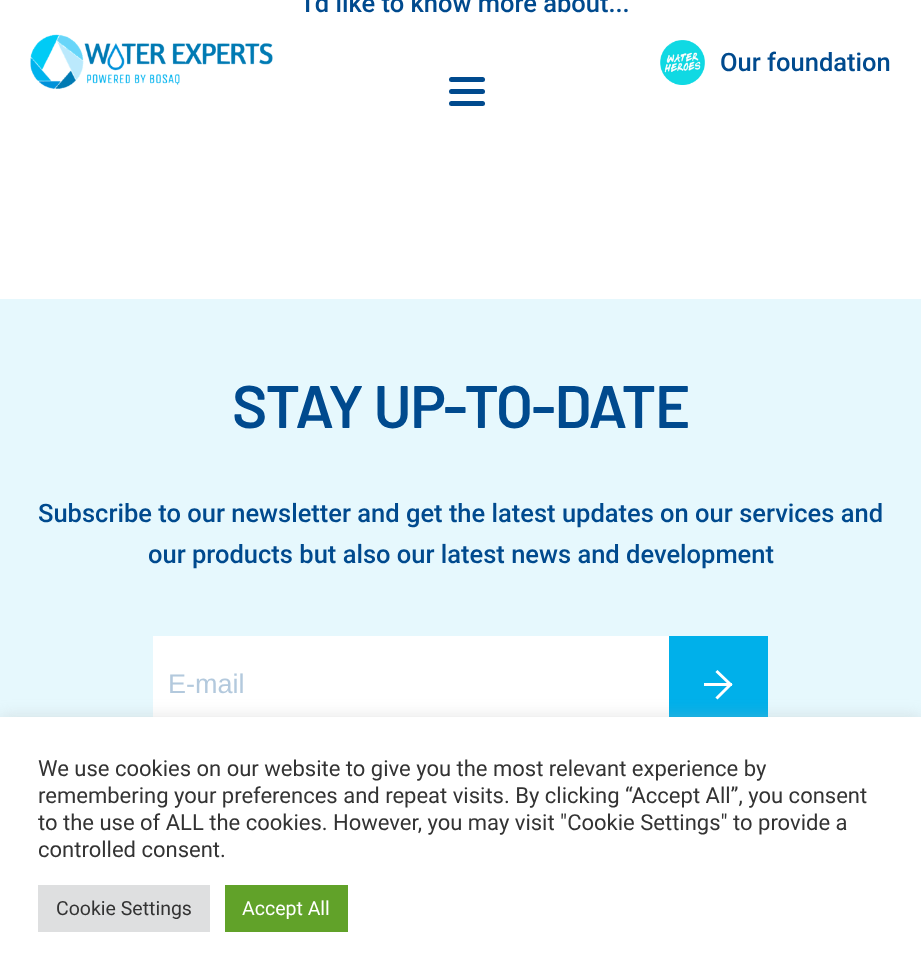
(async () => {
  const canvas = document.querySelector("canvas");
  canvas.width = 921;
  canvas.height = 976;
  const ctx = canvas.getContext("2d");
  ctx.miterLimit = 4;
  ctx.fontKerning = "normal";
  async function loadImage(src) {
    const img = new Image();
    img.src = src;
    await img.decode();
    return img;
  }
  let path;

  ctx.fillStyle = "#ffffff";
  ctx.fillRect(0, 0, 921, 976);
  ctx.fillStyle = "#004a8e";
  ctx.beginPath();
  ctx.roundRect(449, 77, 36, 5, 2.5);
  ctx.fill();
  ctx.beginPath();
  ctx.roundRect(449, 89, 36, 5, 2.5);
  ctx.fill();
  ctx.beginPath();
  ctx.roundRect(449, 101, 36, 5, 2.5);
  ctx.fill();
  ctx.drawImage(await loadImage("img/1.png"), 30, 34, 243, 55);
  ctx.drawImage(await loadImage("img/2.png"), 660, 40, 45, 45);
  for (const [x, y, w, h, color] of [
    [0, 299, 921, 418, "#e6f8fd"],
    [153, 636, 516, 81, "#ffffff"],
    [669, 636, 99, 81, "#00b0ea"],
  ]) {
    ctx.fillStyle = color;
    ctx.fillRect(x, y, w, h);
  }
  ctx.save();
  ctx.beginPath();
  ctx.rect(704, 669, 30, 32);
  ctx.clip();
  path = new Path2D("M705 684.5H730.5M730.5 684.5L717.5 672M730.5 684.5L717.5 697.5");
  ctx.strokeStyle = "#ffffff";
  ctx.lineWidth = 3;
  ctx.lineCap = "square";
  ctx.stroke(path);
  ctx.restore();
  ctx.fillStyle = "rgba(172, 171, 171, 0.3)";
  ctx.filter = "blur(7.5px)";
  ctx.beginPath();
  ctx.rect(0, 716, 921, 259);
  ctx.fill();
  ctx.filter = "none";
  for (const [x, y, w, h, color] of [
    [0, 717, 921, 259, "#ffffff"],
    [38, 885, 172, 47, "#dedfe0"],
    [225, 885, 123, 47, "#61a229"],
  ]) {
    ctx.fillStyle = color;
    ctx.fillRect(x, y, w, h);
  }
  ctx.font = "500 25.5px Roboto";
  ctx.fillStyle = "#004a8e";
  ctx.fillText("I'd like to know more about...", 304, 12);
  ctx.fillText("Our foundation", 720, 71);
  ctx.letterSpacing = "-1.25px";
  ctx.font = "600 60px Barlow";
  ctx.fillText("STAY UP-TO-DATE", 232, 428);
  ctx.letterSpacing = "0px";
  ctx.font = "500 25.5px Roboto";
  ctx.fillText("Subscribe to our newsletter and get the latest updates on our services and", 38, 522);
  ctx.fillText("our products but also our latest news and development", 148, 563);
  ctx.font = "27px Liberation Sans";
  ctx.fillStyle = "#b3c9dd";
  ctx.fillText("E-mail", 168, 693);
  ctx.font = "22px Roboto";
  ctx.fillStyle = "#333333";
  for (const [text, x, y] of [
    ["We use cookies on our website to give you the most relevant experience by", 38, 776],
    ["remembering your preferences and repeat visits. By clicking “Accept All”, you consent", 38, 803],
    ["to the use of ALL the cookies. However, you may visit \"Cookie Settings\" to provide a", 38, 830],
    ["controlled consent.", 38, 857],
  ]) {
    ctx.fillText(text, x, y);
  }
  ctx.font = "19.5px Roboto";
  ctx.fillText("Cookie Settings", 56, 915);
  ctx.fillStyle = "#ffffff";
  ctx.fillText("Accept All", 242, 915);
})();
